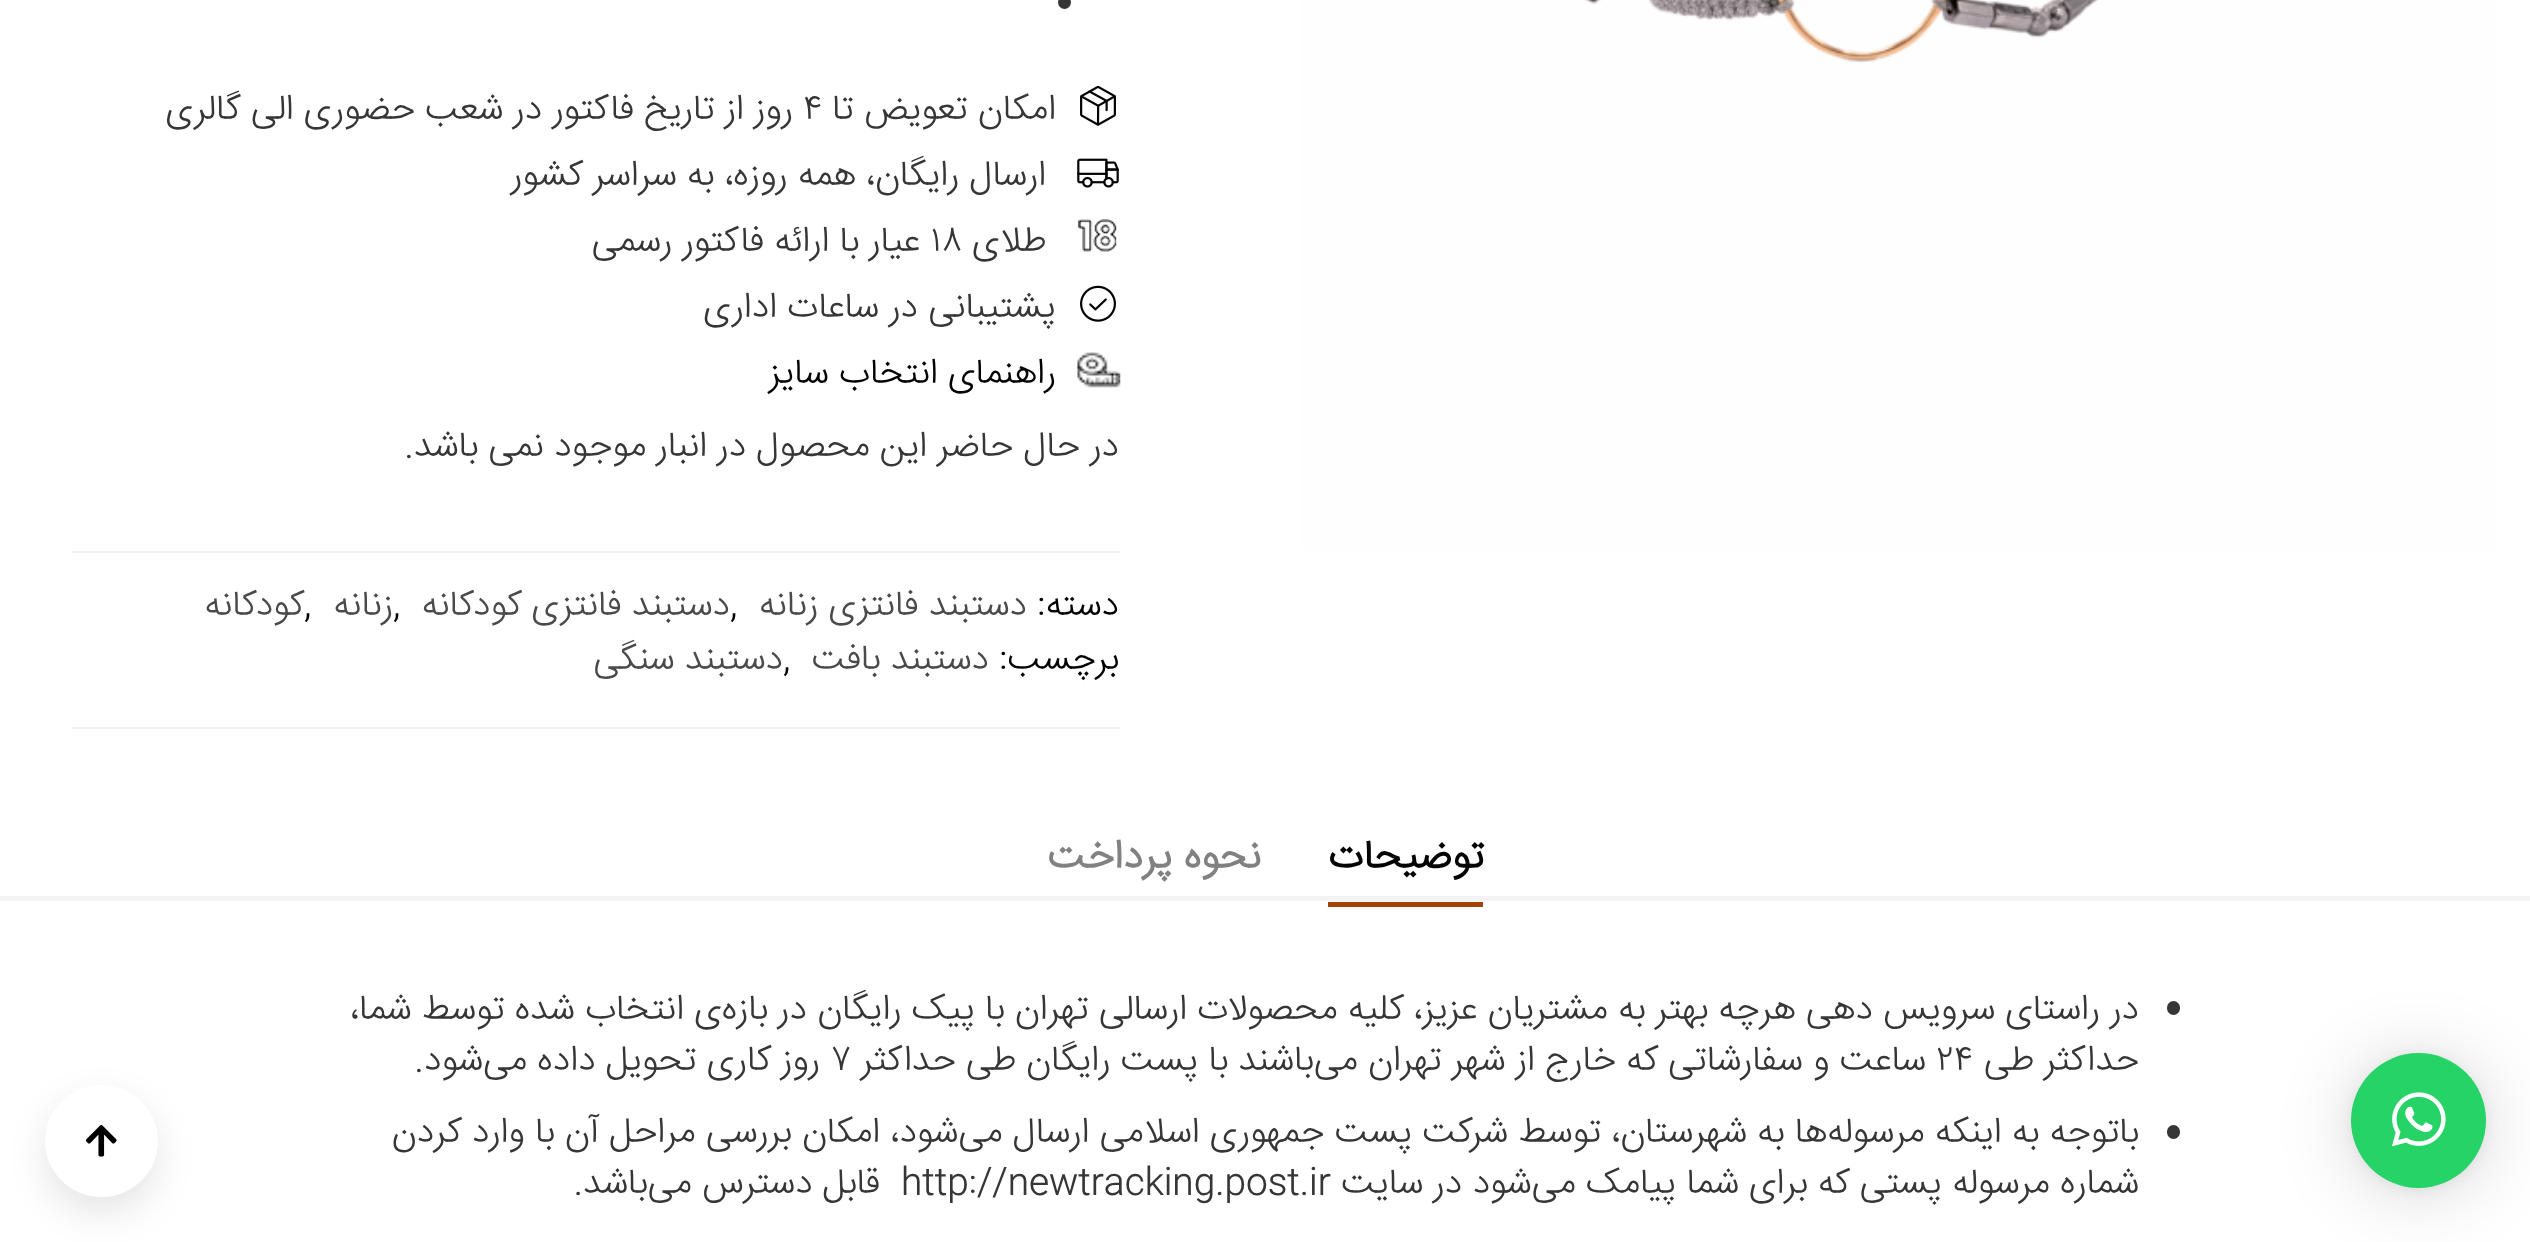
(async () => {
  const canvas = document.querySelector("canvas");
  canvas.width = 2530;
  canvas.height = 1242;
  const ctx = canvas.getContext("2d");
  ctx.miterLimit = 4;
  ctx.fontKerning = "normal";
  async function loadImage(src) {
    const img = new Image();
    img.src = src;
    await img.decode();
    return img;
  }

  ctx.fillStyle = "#ffffff";
  ctx.fillRect(0, 0, 2530, 1242);
  ctx.fillStyle = "rgba(0, 0, 0, 0.16)";
  ctx.filter = "blur(36px)";
  ctx.beginPath();
  ctx.roundRect(2351, 1058, 135, 135, 67.5);
  ctx.fill();
  ctx.filter = "none";
  ctx.fillStyle = "rgba(0, 0, 0, 0.06)";
  ctx.filter = "blur(7px)";
  ctx.beginPath();
  ctx.roundRect(2351, 1055, 135, 135, 67.5);
  ctx.fill();
  ctx.filter = "none";
  ctx.fillStyle = "#25d366";
  ctx.beginPath();
  ctx.arc(2418.5, 1120.5, 67.5, 0, Math.PI * 2);
  ctx.fill();
  ctx.drawImage(await loadImage("img/1.png"), 2392, 1092, 54, 55);
  ctx.drawImage(await loadImage("img/2.png"), 1301, 0, 1197, 551);
  ctx.fillStyle = "#363636";
  ctx.beginPath();
  ctx.arc(1064.5, 2.5, 6.5, 0, Math.PI * 2);
  ctx.fill();
  ctx.drawImage(await loadImage("img/3.png"), 1080, 85, 36, 41);
  ctx.drawImage(await loadImage("img/4.png"), 1077, 158, 42, 30);
  ctx.drawImage(await loadImage("img/5.png"), 1077, 219, 40, 33);
  ctx.drawImage(await loadImage("img/6.png"), 1080, 285, 36, 37);
  ctx.drawImage(await loadImage("img/7.png"), 1077, 352, 44, 36);
  for (const [x, y, w, h, color] of [
    [72, 551, 1049, 2, "#f1f1f1"],
    [72, 727, 1049, 2, "#f1f1f1"],
    [1328, 902, 155, 5, "#a54201"],
    [0, 896, 2530, 5, "#f3f3f3"],
  ]) {
    ctx.fillStyle = color;
    ctx.fillRect(x, y, w, h);
  }
  ctx.fillStyle = "#363636";
  ctx.beginPath();
  ctx.roundRect(2167, 1001, 13, 14, 6.5);
  ctx.fill();
  ctx.beginPath();
  ctx.roundRect(2167, 1125, 13, 14, 6.5);
  ctx.fill();
  ctx.fillStyle = "rgba(0, 0, 0, 0.1)";
  ctx.filter = "blur(18px)";
  ctx.beginPath();
  ctx.roundRect(45, 1100, 113, 113, 56.5);
  ctx.fill();
  ctx.filter = "none";
  ctx.fillStyle = "#ffffff";
  ctx.beginPath();
  ctx.roundRect(45, 1085, 113, 112, 56);
  ctx.fill();
  ctx.drawImage(await loadImage("img/8.png"), 85, 1125, 32, 32);
  ctx.direction = "rtl";
  ctx.font = "300 36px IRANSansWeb";
  ctx.fillStyle = "#363636";
  ctx.fillText("امکان تعویض تا", 1056, 119);
  ctx.direction = "ltr";
  ctx.fillText("۴", 803, 119);
  ctx.direction = "rtl";
  for (const [text, x, y] of [
    ["روز از تاریخ فاکتور در شعب حضوری الی گالری", 793, 119],
    ["ارسال رایگان، همه روزه، به سراسر کشور", 1046, 185],
    ["طلای", 1046, 251],
  ]) {
    ctx.fillText(text, x, y);
  }
  ctx.direction = "ltr";
  ctx.fillText("۱۸", 931, 251);
  ctx.direction = "rtl";
  ctx.fillText("عیار با ارائه فاکتور رسمی", 920, 251);
  ctx.fillText("پشتیبانی در ساعات اداری", 1056, 317);
  ctx.fillStyle = "#040202";
  ctx.fillText("راهنمای انتخاب سایز", 1056, 383);
  ctx.fillStyle = "#363636";
  ctx.fillText("در حال حاضر این محصول در انبار موجود نمی باشد.", 1119, 456);
  ctx.fillStyle = "#040202";
  ctx.fillText("دسته:", 1119, 615);
  ctx.fillStyle = "#4a4a4a";
  for (const [text, x, y] of [
    ["دستبند فانتزی زنانه", 1027, 615],
    ["دستبند فانتزی کودکانه", 730, 615],
    ["زنانه", 393, 615],
    ["کودکانه", 304, 615],
  ]) {
    ctx.fillText(text, x, y);
  }
  ctx.direction = "ltr";
  ctx.fillStyle = "#040202";
  for (const [text, x, y] of [
    [",", 730, 615],
    [",", 393, 615],
    [",", 304, 615],
  ]) {
    ctx.fillText(text, x, y);
  }
  ctx.direction = "rtl";
  ctx.fillText("برچسب:", 1119, 669);
  ctx.fillStyle = "#4a4a4a";
  ctx.fillText("دستبند بافت", 989, 669);
  ctx.direction = "ltr";
  ctx.fillStyle = "#040202";
  ctx.fillText(",", 783, 669);
  ctx.direction = "rtl";
  ctx.fillStyle = "#4a4a4a";
  ctx.fillText("دستبند سنگی", 783, 669);
  ctx.font = "bold 40.5px IRANSansWeb";
  ctx.fillStyle = "#040202";
  ctx.fillText("توضیحات", 1484, 868);
  ctx.fillStyle = "#828181";
  ctx.fillText("نحوه پرداخت", 1261, 868);
  ctx.font = "300 36px IRANSansWeb";
  ctx.fillStyle = "#363636";
  ctx.fillText("در راستای سرویس دهی هرچه بهتر به مشتریان عزیز، کلیه محصولات ارسالی تهران با پیک رایگان در بازه‌ی انتخاب شده توسط شما،", 2139, 1019);
  ctx.fillText("حداکثر طی", 2139, 1070);
  ctx.direction = "ltr";
  ctx.fillText("۲۴", 1936, 1070);
  ctx.direction = "rtl";
  ctx.fillText("ساعت و سفارشاتی که خارج از شهر تهران می‌باشند با پست رایگان طی حداکثر", 1926, 1070);
  ctx.direction = "ltr";
  ctx.fillText("۷", 831, 1070);
  ctx.direction = "rtl";
  for (const [text, x, y] of [
    ["روز کاری تحویل داده می‌شود.", 820, 1070],
    ["باتوجه به اینکه مرسوله‌ها به شهرستان، توسط شرکت پست جمهوری اسلامی ارسال می‌شود، امکان بررسی مراحل آن با وارد کردن", 2139, 1142],
    ["شماره مرسوله پستی که برای شما پیامک می‌شود در سایت", 2139, 1193],
  ]) {
    ctx.fillText(text, x, y);
  }
  ctx.direction = "ltr";
  ctx.fillText("http://newtracking.post.ir", 901, 1193);
  ctx.direction = "rtl";
  ctx.fillText("قابل دسترس می‌باشد.", 880, 1193);
})();
